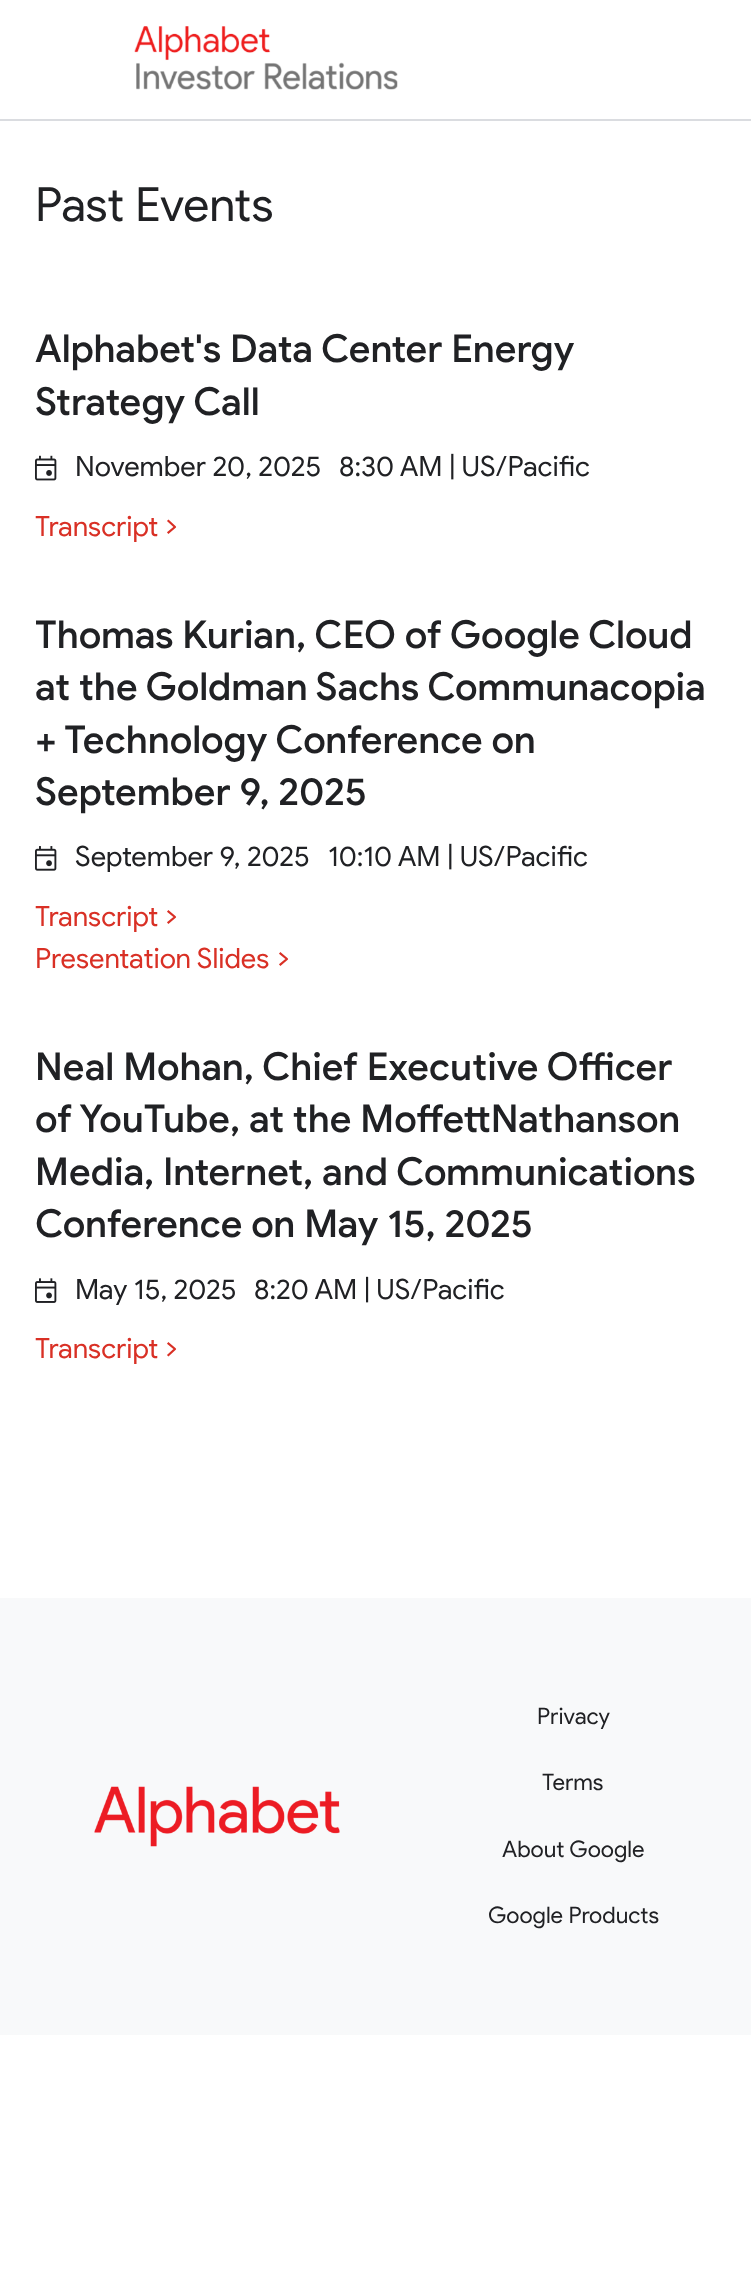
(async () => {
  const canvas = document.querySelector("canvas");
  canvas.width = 751;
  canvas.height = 2290;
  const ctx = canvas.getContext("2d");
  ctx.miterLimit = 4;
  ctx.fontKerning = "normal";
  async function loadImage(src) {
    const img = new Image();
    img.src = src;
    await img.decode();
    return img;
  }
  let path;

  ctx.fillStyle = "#ffffff";
  ctx.fillRect(0, 0, 751, 2290);
  ctx.fillStyle = "#dadce0";
  ctx.fillRect(0, 119, 751, 2);
  ctx.drawImage(await loadImage("img/1.png"), 134, 26, 264, 64);
  ctx.drawImage(await loadImage("img/2.png"), 35, 455, 22, 26);
  path = new Path2D("M168.5 521L175 527L168.5 532.5");
  ctx.strokeStyle = "#d93025";
  ctx.lineWidth = 2.2;
  ctx.lineCap = "square";
  ctx.lineJoin = "round";
  ctx.stroke(path);
  ctx.drawImage(await loadImage("img/3.png"), 35, 846, 22, 25);
  path = new Path2D("M168.5 911.5L175 917L168.5 922.5");
  ctx.stroke(path);
  path = new Path2D("M280.5 953.5L287 959L280.5 964.5");
  ctx.stroke(path);
  ctx.drawImage(await loadImage("img/4.png"), 35, 1278, 22, 25);
  path = new Path2D("M168.5 1343.5L175 1349L168.5 1355");
  ctx.stroke(path);
  ctx.fillStyle = "#f8f9fa";
  ctx.fillRect(0, 1598, 751, 437);
  ctx.drawImage(await loadImage("img/5.png"), 94, 1786, 246, 61);
  ctx.font = "47.25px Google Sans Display";
  ctx.fillStyle = "#202124";
  ctx.fillText("Past Events", 35, 221);
  ctx.font = "500 38.5px Google Sans Display";
  ctx.fillText("Alphabet's Data Center Energy", 35, 362);
  ctx.fillText("Strategy Call", 35, 415);
  ctx.font = "28px Google Sans Display";
  ctx.fillText("November 20, 2025", 75, 476);
  ctx.fillText("8:30 AM | US/Pacific", 339, 476);
  ctx.fillStyle = "#d93025";
  ctx.fillText("Transcript", 35, 536);
  ctx.font = "500 38.5px Google Sans Display";
  ctx.fillStyle = "#202124";
  for (const [text, x, y] of [
    ["Thomas Kurian, CEO of Google Cloud", 35, 648],
    ["at the Goldman Sachs Communacopia", 35, 700],
    ["+ Technology Conference on", 35, 753],
    ["September 9, 2025", 35, 805],
  ]) {
    ctx.fillText(text, x, y);
  }
  ctx.font = "28px Google Sans Display";
  ctx.fillText("September 9, 2025", 75, 866);
  ctx.fillText("10:10 AM | US/Pacific", 328, 866);
  ctx.fillStyle = "#d93025";
  ctx.fillText("Transcript", 35, 926);
  ctx.fillText("Presentation Slides", 35, 968);
  ctx.font = "500 38.5px Google Sans Display";
  ctx.fillStyle = "#202124";
  for (const [text, x, y] of [
    ["Neal Mohan, Chief Executive Officer", 35, 1080],
    ["of YouTube, at the MoffettNathanson", 35, 1132],
    ["Media, Internet, and Communications", 35, 1185],
    ["Conference on May 15, 2025", 35, 1237],
  ]) {
    ctx.fillText(text, x, y);
  }
  ctx.font = "28px Google Sans Display";
  ctx.fillText("May 15, 2025", 75, 1299);
  ctx.fillText("8:20 AM | US/Pacific", 254, 1299);
  ctx.fillStyle = "#d93025";
  ctx.fillText("Transcript", 35, 1358);
  ctx.font = "22.75px Google Sans Display";
  ctx.fillStyle = "#202124";
  for (const [text, x, y] of [
    ["Privacy", 537, 1724],
    ["Terms", 542, 1790],
    ["About Google", 502, 1857],
    ["Google Products", 488, 1923],
  ]) {
    ctx.fillText(text, x, y);
  }
})();
